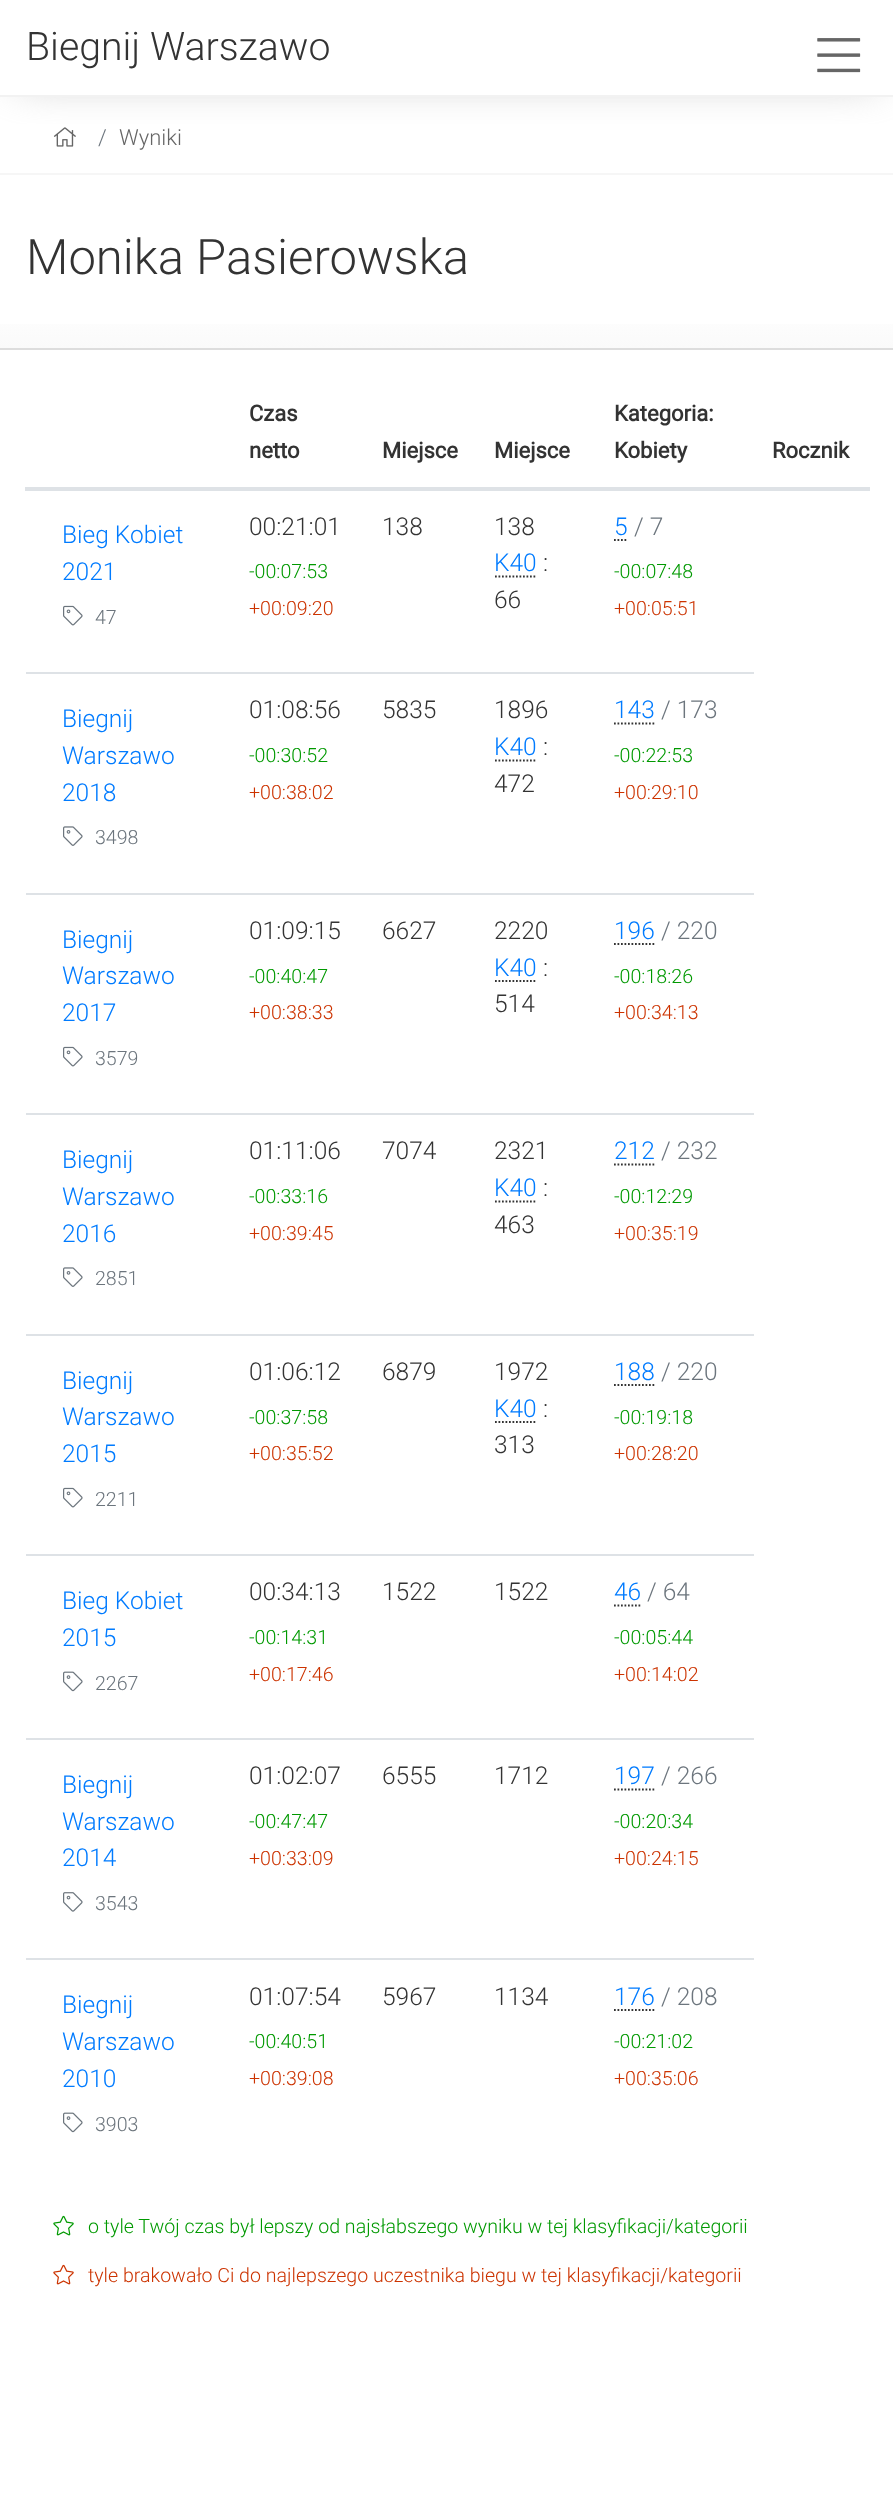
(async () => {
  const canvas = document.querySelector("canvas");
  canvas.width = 893;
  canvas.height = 2517;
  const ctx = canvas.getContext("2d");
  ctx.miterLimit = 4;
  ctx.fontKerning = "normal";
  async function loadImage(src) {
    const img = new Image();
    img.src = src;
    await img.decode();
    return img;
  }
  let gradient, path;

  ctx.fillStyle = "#ffffff";
  ctx.fillRect(0, 0, 893, 2517);
  ctx.save();
  ctx.beginPath();
  ctx.rect(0, 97, 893, 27);
  ctx.clip();
  ctx.fillStyle = "#b8b8b8";
  ctx.filter = "blur(22px)";
  ctx.beginPath();
  ctx.rect(16, 14, 863, 65);
  ctx.fill();
  ctx.filter = "none";
  ctx.restore();
  ctx.fillStyle = "#f2f2f2";
  ctx.fillRect(0, 95, 893, 2);
  ctx.drawImage(await loadImage("img/1.png"), 817, 38, 44, 35);
  ctx.fillStyle = "#f6f6f6";
  ctx.fillRect(0, 173, 893, 2);
  ctx.drawImage(await loadImage("img/2.png"), 53, 127, 23, 20);
  gradient = ctx.createLinearGradient(447, 201, 447, 348);
  gradient.addColorStop(0.68, "#ffffff");
  gradient.addColorStop(1, "#fafafa");
  ctx.fillStyle = gradient;
  ctx.fillRect(0, 324, 893, 24);
  ctx.fillStyle = "#dddddd";
  ctx.fillRect(0, 348, 893, 2);
  ctx.fillStyle = "#dee2e6";
  ctx.fillRect(25, 487, 845, 4);
  ctx.drawImage(await loadImage("img/3.png"), 63, 605, 20, 21);
  path = new Path2D("M495 576.5H537");
  ctx.strokeStyle = "#333333";
  ctx.lineWidth = 1.8;
  ctx.setLineDash([1.75, 1.75]);
  ctx.stroke(path);
  path = new Path2D("M614 540H628");
  ctx.stroke(path);
  ctx.drawImage(await loadImage("img/4.png"), 63, 826, 20, 20);
  path = new Path2D("M495 760.5H537");
  ctx.stroke(path);
  ctx.fillRect(26, 672, 728, 2);
  path = new Path2D("M614 723.5H654.5");
  ctx.stroke(path);
  ctx.drawImage(await loadImage("img/3.png"), 63, 1046, 20, 21);
  path = new Path2D("M495 981H537");
  ctx.stroke(path);
  ctx.fillRect(26, 893, 728, 2);
  path = new Path2D("M614 944H654.5");
  ctx.stroke(path);
  ctx.drawImage(await loadImage("img/4.png"), 63, 1267, 20, 20);
  path = new Path2D("M495 1201.5H537");
  ctx.stroke(path);
  ctx.fillRect(26, 1113, 728, 2);
  path = new Path2D("M614 1164.5H654.5");
  ctx.stroke(path);
  ctx.drawImage(await loadImage("img/3.png"), 63, 1487, 20, 21);
  path = new Path2D("M495 1422H537");
  ctx.stroke(path);
  ctx.fillRect(26, 1334, 728, 2);
  path = new Path2D("M614 1385H654.5");
  ctx.stroke(path);
  ctx.drawImage(await loadImage("img/5.png"), 63, 1671, 20, 21);
  ctx.fillRect(26, 1554, 728, 2);
  path = new Path2D("M614 1605.5H640.5");
  ctx.stroke(path);
  ctx.drawImage(await loadImage("img/6.png"), 63, 1892, 20, 20);
  ctx.fillRect(26, 1738, 728, 2);
  path = new Path2D("M614 1789.5H654.5");
  ctx.stroke(path);
  ctx.drawImage(await loadImage("img/5.png"), 63, 2112, 20, 21);
  ctx.fillRect(26, 1958, 728, 2);
  path = new Path2D("M614 2010H654.5");
  ctx.stroke(path);
  ctx.drawImage(await loadImage("img/7.png"), 53, 2215, 21, 21);
  ctx.drawImage(await loadImage("img/8.png"), 53, 2264, 21, 21);
  ctx.font = "300 39.25px Roboto";
  ctx.fillStyle = "#333333";
  ctx.fillText("Biegnij Warszawo", 26, 60);
  ctx.font = "300 22px Roboto";
  ctx.fillStyle = "#6c757d";
  ctx.fillText("/", 98, 145);
  ctx.fillStyle = "#666666";
  ctx.fillText("Wyniki", 119, 145);
  ctx.font = "300 49px Roboto";
  ctx.fillStyle = "#333333";
  ctx.fillText("Monika Pasierowska", 26, 274);
  ctx.font = "bold 22px Roboto";
  for (const [text, x, y] of [
    ["Czas", 249, 421],
    ["netto", 249, 458],
    ["Miejsce", 382, 458],
    ["Miejsce", 494, 458],
    ["Kategoria:", 614, 421],
    ["Kobiety", 614, 458],
    ["Rocznik", 772, 458],
  ]) {
    ctx.fillText(text, x, y);
  }
  ctx.font = "300 24.5px Roboto";
  ctx.fillStyle = "#007bff";
  ctx.fillText("Bieg Kobiet", 62, 543);
  ctx.fillText("2021", 62, 580);
  ctx.font = "300 19.6px Roboto";
  ctx.fillStyle = "#6c757d";
  ctx.fillText("47", 95, 624);
  ctx.font = "300 24.5px Roboto";
  ctx.fillStyle = "#333333";
  ctx.fillText("00:21:01", 249, 535);
  ctx.font = "300 19.6px Roboto";
  ctx.fillStyle = "#009900";
  ctx.fillText("-00:07:53", 249, 578);
  ctx.fillStyle = "#cc3300";
  ctx.fillText("+00:09:20", 249, 615);
  ctx.font = "300 24.5px Roboto";
  ctx.fillStyle = "#333333";
  ctx.fillText("138", 382, 535);
  ctx.fillText("138", 494, 535);
  ctx.fillStyle = "#007bff";
  ctx.fillText("K40", 494, 571);
  ctx.fillStyle = "#333333";
  ctx.fillText(":", 543, 571);
  ctx.fillText("66", 494, 608);
  ctx.fillStyle = "#007bff";
  ctx.fillText("5", 614, 535);
  ctx.fillStyle = "#6c757d";
  ctx.fillText("/ 7", 634, 535);
  ctx.font = "300 19.6px Roboto";
  ctx.fillStyle = "#009900";
  ctx.fillText("-00:07:48", 614, 578);
  ctx.fillStyle = "#cc3300";
  ctx.fillText("+00:05:51", 614, 615);
  ctx.font = "300 24.5px Roboto";
  ctx.fillStyle = "#007bff";
  for (const [text, x, y] of [
    ["Biegnij", 62, 727],
    ["Warszawo", 62, 764],
    ["2018", 62, 801],
  ]) {
    ctx.fillText(text, x, y);
  }
  ctx.font = "300 19.6px Roboto";
  ctx.fillStyle = "#6c757d";
  ctx.fillText("3498", 95, 844);
  ctx.font = "300 24.5px Roboto";
  ctx.fillStyle = "#333333";
  ctx.fillText("01:08:56", 249, 718);
  ctx.font = "300 19.6px Roboto";
  ctx.fillStyle = "#009900";
  ctx.fillText("-00:30:52", 249, 762);
  ctx.fillStyle = "#cc3300";
  ctx.fillText("+00:38:02", 249, 799);
  ctx.font = "300 24.5px Roboto";
  ctx.fillStyle = "#333333";
  ctx.fillText("5835", 382, 718);
  ctx.fillText("1896", 494, 718);
  ctx.fillStyle = "#007bff";
  ctx.fillText("K40", 494, 755);
  ctx.fillStyle = "#333333";
  ctx.fillText(":", 543, 755);
  ctx.fillText("472", 494, 792);
  ctx.fillStyle = "#007bff";
  ctx.fillText("143", 614, 718);
  ctx.fillStyle = "#6c757d";
  ctx.fillText("/ 173", 661, 718);
  ctx.font = "300 19.6px Roboto";
  ctx.fillStyle = "#009900";
  ctx.fillText("-00:22:53", 614, 762);
  ctx.fillStyle = "#cc3300";
  ctx.fillText("+00:29:10", 614, 799);
  ctx.font = "300 24.5px Roboto";
  ctx.fillStyle = "#007bff";
  for (const [text, x, y] of [
    ["Biegnij", 62, 948],
    ["Warszawo", 62, 984],
    ["2017", 62, 1021],
  ]) {
    ctx.fillText(text, x, y);
  }
  ctx.font = "300 19.6px Roboto";
  ctx.fillStyle = "#6c757d";
  ctx.fillText("3579", 95, 1065);
  ctx.font = "300 24.5px Roboto";
  ctx.fillStyle = "#333333";
  ctx.fillText("01:09:15", 249, 939);
  ctx.font = "300 19.6px Roboto";
  ctx.fillStyle = "#009900";
  ctx.fillText("-00:40:47", 249, 983);
  ctx.fillStyle = "#cc3300";
  ctx.fillText("+00:38:33", 249, 1019);
  ctx.font = "300 24.5px Roboto";
  ctx.fillStyle = "#333333";
  ctx.fillText("6627", 382, 939);
  ctx.fillText("2220", 494, 939);
  ctx.fillStyle = "#007bff";
  ctx.fillText("K40", 494, 976);
  ctx.fillStyle = "#333333";
  ctx.fillText(":", 543, 976);
  ctx.fillText("514", 494, 1012);
  ctx.fillStyle = "#007bff";
  ctx.fillText("196", 614, 939);
  ctx.fillStyle = "#6c757d";
  ctx.fillText("/ 220", 661, 939);
  ctx.font = "300 19.6px Roboto";
  ctx.fillStyle = "#009900";
  ctx.fillText("-00:18:26", 614, 983);
  ctx.fillStyle = "#cc3300";
  ctx.fillText("+00:34:13", 614, 1019);
  ctx.font = "300 24.5px Roboto";
  ctx.fillStyle = "#007bff";
  for (const [text, x, y] of [
    ["Biegnij", 62, 1168],
    ["Warszawo", 62, 1205],
    ["2016", 62, 1242],
  ]) {
    ctx.fillText(text, x, y);
  }
  ctx.font = "300 19.6px Roboto";
  ctx.fillStyle = "#6c757d";
  ctx.fillText("2851", 95, 1285);
  ctx.font = "300 24.5px Roboto";
  ctx.fillStyle = "#333333";
  ctx.fillText("01:11:06", 249, 1159);
  ctx.font = "300 19.6px Roboto";
  ctx.fillStyle = "#009900";
  ctx.fillText("-00:33:16", 249, 1203);
  ctx.fillStyle = "#cc3300";
  ctx.fillText("+00:39:45", 249, 1240);
  ctx.font = "300 24.5px Roboto";
  ctx.fillStyle = "#333333";
  ctx.fillText("7074", 382, 1159);
  ctx.fillText("2321", 494, 1159);
  ctx.fillStyle = "#007bff";
  ctx.fillText("K40", 494, 1196);
  ctx.fillStyle = "#333333";
  ctx.fillText(":", 543, 1196);
  ctx.fillText("463", 494, 1233);
  ctx.fillStyle = "#007bff";
  ctx.fillText("212", 614, 1159);
  ctx.fillStyle = "#6c757d";
  ctx.fillText("/ 232", 661, 1159);
  ctx.font = "300 19.6px Roboto";
  ctx.fillStyle = "#009900";
  ctx.fillText("-00:12:29", 614, 1203);
  ctx.fillStyle = "#cc3300";
  ctx.fillText("+00:35:19", 614, 1240);
  ctx.font = "300 24.5px Roboto";
  ctx.fillStyle = "#007bff";
  for (const [text, x, y] of [
    ["Biegnij", 62, 1389],
    ["Warszawo", 62, 1425],
    ["2015", 62, 1462],
  ]) {
    ctx.fillText(text, x, y);
  }
  ctx.font = "300 19.6px Roboto";
  ctx.fillStyle = "#6c757d";
  ctx.fillText("2211", 95, 1506);
  ctx.font = "300 24.5px Roboto";
  ctx.fillStyle = "#333333";
  ctx.fillText("01:06:12", 249, 1380);
  ctx.font = "300 19.6px Roboto";
  ctx.fillStyle = "#009900";
  ctx.fillText("-00:37:58", 249, 1424);
  ctx.fillStyle = "#cc3300";
  ctx.fillText("+00:35:52", 249, 1460);
  ctx.font = "300 24.5px Roboto";
  ctx.fillStyle = "#333333";
  ctx.fillText("6879", 382, 1380);
  ctx.fillText("1972", 494, 1380);
  ctx.fillStyle = "#007bff";
  ctx.fillText("K40", 494, 1417);
  ctx.fillStyle = "#333333";
  ctx.fillText(":", 543, 1417);
  ctx.fillText("313", 494, 1453);
  ctx.fillStyle = "#007bff";
  ctx.fillText("188", 614, 1380);
  ctx.fillStyle = "#6c757d";
  ctx.fillText("/ 220", 661, 1380);
  ctx.font = "300 19.6px Roboto";
  ctx.fillStyle = "#009900";
  ctx.fillText("-00:19:18", 614, 1424);
  ctx.fillStyle = "#cc3300";
  ctx.fillText("+00:28:20", 614, 1460);
  ctx.font = "300 24.5px Roboto";
  ctx.fillStyle = "#007bff";
  ctx.fillText("Bieg Kobiet", 62, 1609);
  ctx.fillText("2015", 62, 1646);
  ctx.font = "300 19.6px Roboto";
  ctx.fillStyle = "#6c757d";
  ctx.fillText("2267", 95, 1690);
  ctx.font = "300 24.5px Roboto";
  ctx.fillStyle = "#333333";
  ctx.fillText("00:34:13", 249, 1600);
  ctx.font = "300 19.6px Roboto";
  ctx.fillStyle = "#009900";
  ctx.fillText("-00:14:31", 249, 1644);
  ctx.fillStyle = "#cc3300";
  ctx.fillText("+00:17:46", 249, 1681);
  ctx.font = "300 24.5px Roboto";
  ctx.fillStyle = "#333333";
  ctx.fillText("1522", 382, 1600);
  ctx.fillText("1522", 494, 1600);
  ctx.fillStyle = "#007bff";
  ctx.fillText("46", 614, 1600);
  ctx.fillStyle = "#6c757d";
  ctx.fillText("/ 64", 647, 1600);
  ctx.font = "300 19.6px Roboto";
  ctx.fillStyle = "#009900";
  ctx.fillText("-00:05:44", 614, 1644);
  ctx.fillStyle = "#cc3300";
  ctx.fillText("+00:14:02", 614, 1681);
  ctx.font = "300 24.5px Roboto";
  ctx.fillStyle = "#007bff";
  for (const [text, x, y] of [
    ["Biegnij", 62, 1793],
    ["Warszawo", 62, 1830],
    ["2014", 62, 1866],
  ]) {
    ctx.fillText(text, x, y);
  }
  ctx.font = "300 19.6px Roboto";
  ctx.fillStyle = "#6c757d";
  ctx.fillText("3543", 95, 1910);
  ctx.font = "300 24.5px Roboto";
  ctx.fillStyle = "#333333";
  ctx.fillText("01:02:07", 249, 1784);
  ctx.font = "300 19.6px Roboto";
  ctx.fillStyle = "#009900";
  ctx.fillText("-00:47:47", 249, 1828);
  ctx.fillStyle = "#cc3300";
  ctx.fillText("+00:33:09", 249, 1865);
  ctx.font = "300 24.5px Roboto";
  ctx.fillStyle = "#333333";
  ctx.fillText("6555", 382, 1784);
  ctx.fillText("1712", 494, 1784);
  ctx.fillStyle = "#007bff";
  ctx.fillText("197", 614, 1784);
  ctx.fillStyle = "#6c757d";
  ctx.fillText("/ 266", 661, 1784);
  ctx.font = "300 19.6px Roboto";
  ctx.fillStyle = "#009900";
  ctx.fillText("-00:20:34", 614, 1828);
  ctx.fillStyle = "#cc3300";
  ctx.fillText("+00:24:15", 614, 1865);
  ctx.font = "300 24.5px Roboto";
  ctx.fillStyle = "#007bff";
  for (const [text, x, y] of [
    ["Biegnij", 62, 2013],
    ["Warszawo", 62, 2050],
    ["2010", 62, 2087],
  ]) {
    ctx.fillText(text, x, y);
  }
  ctx.font = "300 19.6px Roboto";
  ctx.fillStyle = "#6c757d";
  ctx.fillText("3903", 95, 2131);
  ctx.font = "300 24.5px Roboto";
  ctx.fillStyle = "#333333";
  ctx.fillText("01:07:54", 249, 2005);
  ctx.font = "300 19.6px Roboto";
  ctx.fillStyle = "#009900";
  ctx.fillText("-00:40:51", 249, 2048);
  ctx.fillStyle = "#cc3300";
  ctx.fillText("+00:39:08", 249, 2085);
  ctx.font = "300 24.5px Roboto";
  ctx.fillStyle = "#333333";
  ctx.fillText("5967", 382, 2005);
  ctx.fillText("1134", 494, 2005);
  ctx.fillStyle = "#007bff";
  ctx.fillText("176", 614, 2005);
  ctx.fillStyle = "#6c757d";
  ctx.fillText("/ 208", 661, 2005);
  ctx.font = "300 19.6px Roboto";
  ctx.fillStyle = "#009900";
  ctx.fillText("-00:21:02", 614, 2048);
  ctx.fillStyle = "#cc3300";
  ctx.fillText("+00:35:06", 614, 2085);
  ctx.fillStyle = "#009900";
  ctx.fillText("o tyle Twój czas był lepszy od najsłabszego wyniku w tej klasyfikacji/kategorii", 88, 2233);
  ctx.fillStyle = "#cc3300";
  ctx.fillText("tyle brakowało Ci do najlepszego uczestnika biegu w tej klasyfikacji/kategorii", 88, 2282);
})();
